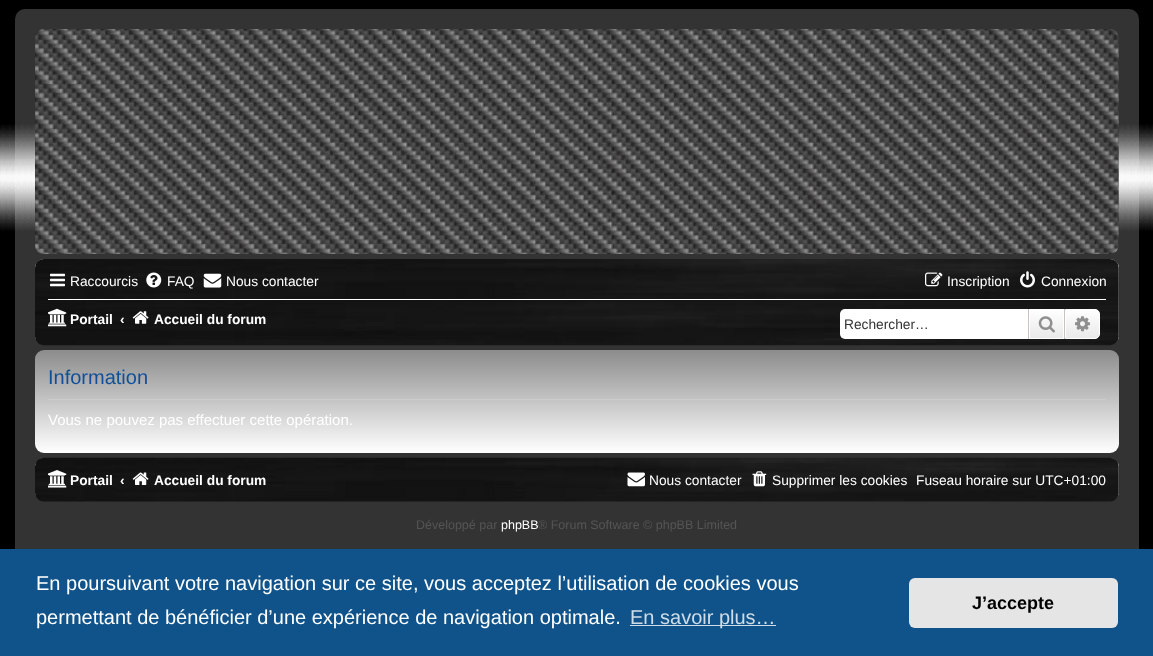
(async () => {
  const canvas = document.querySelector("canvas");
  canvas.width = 1153;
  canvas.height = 656;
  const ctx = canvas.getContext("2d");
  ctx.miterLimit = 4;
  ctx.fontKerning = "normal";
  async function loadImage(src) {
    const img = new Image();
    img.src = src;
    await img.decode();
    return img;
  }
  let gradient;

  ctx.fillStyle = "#000000";
  ctx.fillRect(0, 0, 1153, 656);
  ctx.drawImage(await loadImage("img/1.png"), 0, 124, 1153, 107);
  ctx.fillStyle = "rgba(255, 255, 255, 0.2)";
  ctx.beginPath();
  ctx.roundRect(15, 9, 1124, 605, 10);
  ctx.fill();
  ctx.drawImage(await loadImage("img/2.png"), 35, 29, 1084, 225);
  ctx.fillStyle = "#dddddd";
  ctx.beginPath();
  ctx.roundRect(35, 259, 1084, 86, 9);
  ctx.fill();
  ctx.drawImage(await loadImage("img/3.png"), 35, 259, 1084, 87);
  ctx.drawImage(await loadImage("img/4.png"), 50, 273, 15, 14);
  ctx.drawImage(await loadImage("img/5.png"), 146, 272, 16, 16);
  ctx.drawImage(await loadImage("img/6.png"), 203, 273, 19, 15);
  ctx.drawImage(await loadImage("img/7.png"), 925, 272, 18, 15);
  ctx.drawImage(await loadImage("img/8.png"), 1020, 271, 15, 17);
  ctx.fillStyle = "#ffffff";
  ctx.fillRect(48, 299, 1058, 1);
  ctx.drawImage(await loadImage("img/9.png"), 48, 308, 19, 19);
  ctx.drawImage(await loadImage("img/10.png"), 132, 311, 17, 13);
  ctx.beginPath();
  ctx.roundRect(840, 309, 188, 30, [5, 0, 0, 5]);
  ctx.fill();
  gradient = ctx.createLinearGradient(1046, 309, 1046, 339);
  gradient.addColorStop(0, "#ffffff");
  gradient.addColorStop(1, "#e9e9e9");
  ctx.fillStyle = gradient;
  ctx.fillRect(1030, 310, 33, 28);
  ctx.strokeStyle = "#ffffff";
  ctx.strokeRect(1029.5, 309.5, 34, 29);
  ctx.fillStyle = "#c7c3bf";
  ctx.fillRect(1064, 309, 1, 30);
  ctx.fillRect(1028, 309, 1, 30);
  ctx.drawImage(await loadImage("img/11.png"), 1038, 316, 17, 17);
  gradient = ctx.createLinearGradient(1083, 309, 1083, 339);
  gradient.addColorStop(0, "#ffffff");
  gradient.addColorStop(1, "#e9e9e9");
  ctx.fillStyle = gradient;
  ctx.beginPath();
  ctx.roundRect(1065.5, 309.5, 34, 29, [0, 4.5, 4.5, 0]);
  ctx.fill();
  ctx.stroke();
  ctx.drawImage(await loadImage("img/12.png"), 1075, 316, 15, 16);
  gradient = ctx.createLinearGradient(577, 350, 577, 453);
  gradient.addColorStop(0, "#8c8c8c");
  gradient.addColorStop(1, "#ffffff");
  ctx.fillStyle = gradient;
  ctx.beginPath();
  ctx.roundRect(35, 350, 1084, 103, 9);
  ctx.fill();
  ctx.fillStyle = "#cccccc";
  ctx.fillRect(48, 399, 1058, 1);
  ctx.fillStyle = "#dddddd";
  ctx.beginPath();
  ctx.roundRect(35, 458, 1084, 43, 9);
  ctx.fill();
  ctx.drawImage(await loadImage("img/13.png"), 35, 457, 1084, 45);
  ctx.drawImage(await loadImage("img/14.png"), 48, 470, 19, 18);
  ctx.drawImage(await loadImage("img/15.png"), 132, 472, 17, 13);
  ctx.drawImage(await loadImage("img/16.png"), 627, 472, 18, 15);
  ctx.drawImage(await loadImage("img/17.png"), 752, 471, 15, 16);
  ctx.fillStyle = "#0f538a";
  ctx.fillRect(0, 549, 1153, 107);
  ctx.fillStyle = "#cfdde8";
  ctx.fillRect(630, 625, 146, 1);
  ctx.fillStyle = "#e5e5e5";
  ctx.beginPath();
  ctx.roundRect(909, 578, 209, 50, 6);
  ctx.fill();
  ctx.font = "13.75px Liberation Sans";
  ctx.fillStyle = "#ffffff";
  for (const [text, x, y] of [
    ["Raccourcis", 70, 286],
    ["FAQ", 167, 286],
    ["Nous contacter", 226, 286],
    ["Inscription", 947, 286],
    ["Connexion", 1041, 286],
  ]) {
    ctx.fillText(text, x, y);
  }
  ctx.font = "bold 13.75px Liberation Sans";
  for (const [text, x, y] of [
    ["Portail", 70, 324],
    ["‹", 120, 324],
    ["Accueil du forum", 154, 324],
  ]) {
    ctx.fillText(text, x, y);
  }
  ctx.font = "13.75px Liberation Sans";
  ctx.fillStyle = "#333333";
  ctx.fillText("Rechercher…", 844, 329);
  ctx.font = "20px Liberation Sans";
  ctx.fillStyle = "#115098";
  ctx.fillText("Information", 48, 384);
  ctx.font = "15px Liberation Sans";
  ctx.fillStyle = "#ffffff";
  ctx.fillText("Vous ne pouvez pas effectuer cette opération.", 48, 425);
  ctx.font = "bold 13.75px Liberation Sans";
  for (const [text, x, y] of [
    ["Portail", 70, 485],
    ["‹", 120, 485],
    ["Accueil du forum", 154, 485],
  ]) {
    ctx.fillText(text, x, y);
  }
  ctx.font = "13.75px Liberation Sans";
  for (const [text, x, y] of [
    ["Nous contacter", 649, 485],
    ["Supprimer les cookies", 772, 485],
    ["Fuseau horaire sur UTC+01:00", 916, 485],
  ]) {
    ctx.fillText(text, x, y);
  }
  ctx.font = "12.5px Liberation Sans";
  ctx.fillStyle = "#555555";
  ctx.fillText("Développé par", 416, 529);
  ctx.fillStyle = "#ffffff";
  ctx.fillText("phpBB", 501, 529);
  ctx.fillStyle = "#555555";
  ctx.fillText("® Forum Software © phpBB Limited", 538, 529);
  ctx.font = "20px Liberation Sans";
  ctx.fillStyle = "#ffffff";
  ctx.fillText("En poursuivant votre navigation sur ce site, vous acceptez l’utilisation de cookies vous", 36, 590);
  ctx.fillText("permettant de bénéficier d’une expérience de navigation optimale.", 36, 624);
  ctx.fillStyle = "#cfdde8";
  ctx.fillText("En savoir plus…", 630, 624);
  ctx.font = "bold 18px Liberation Sans";
  ctx.fillStyle = "#000000";
  ctx.fillText("J’accepte", 972, 609);
})();
